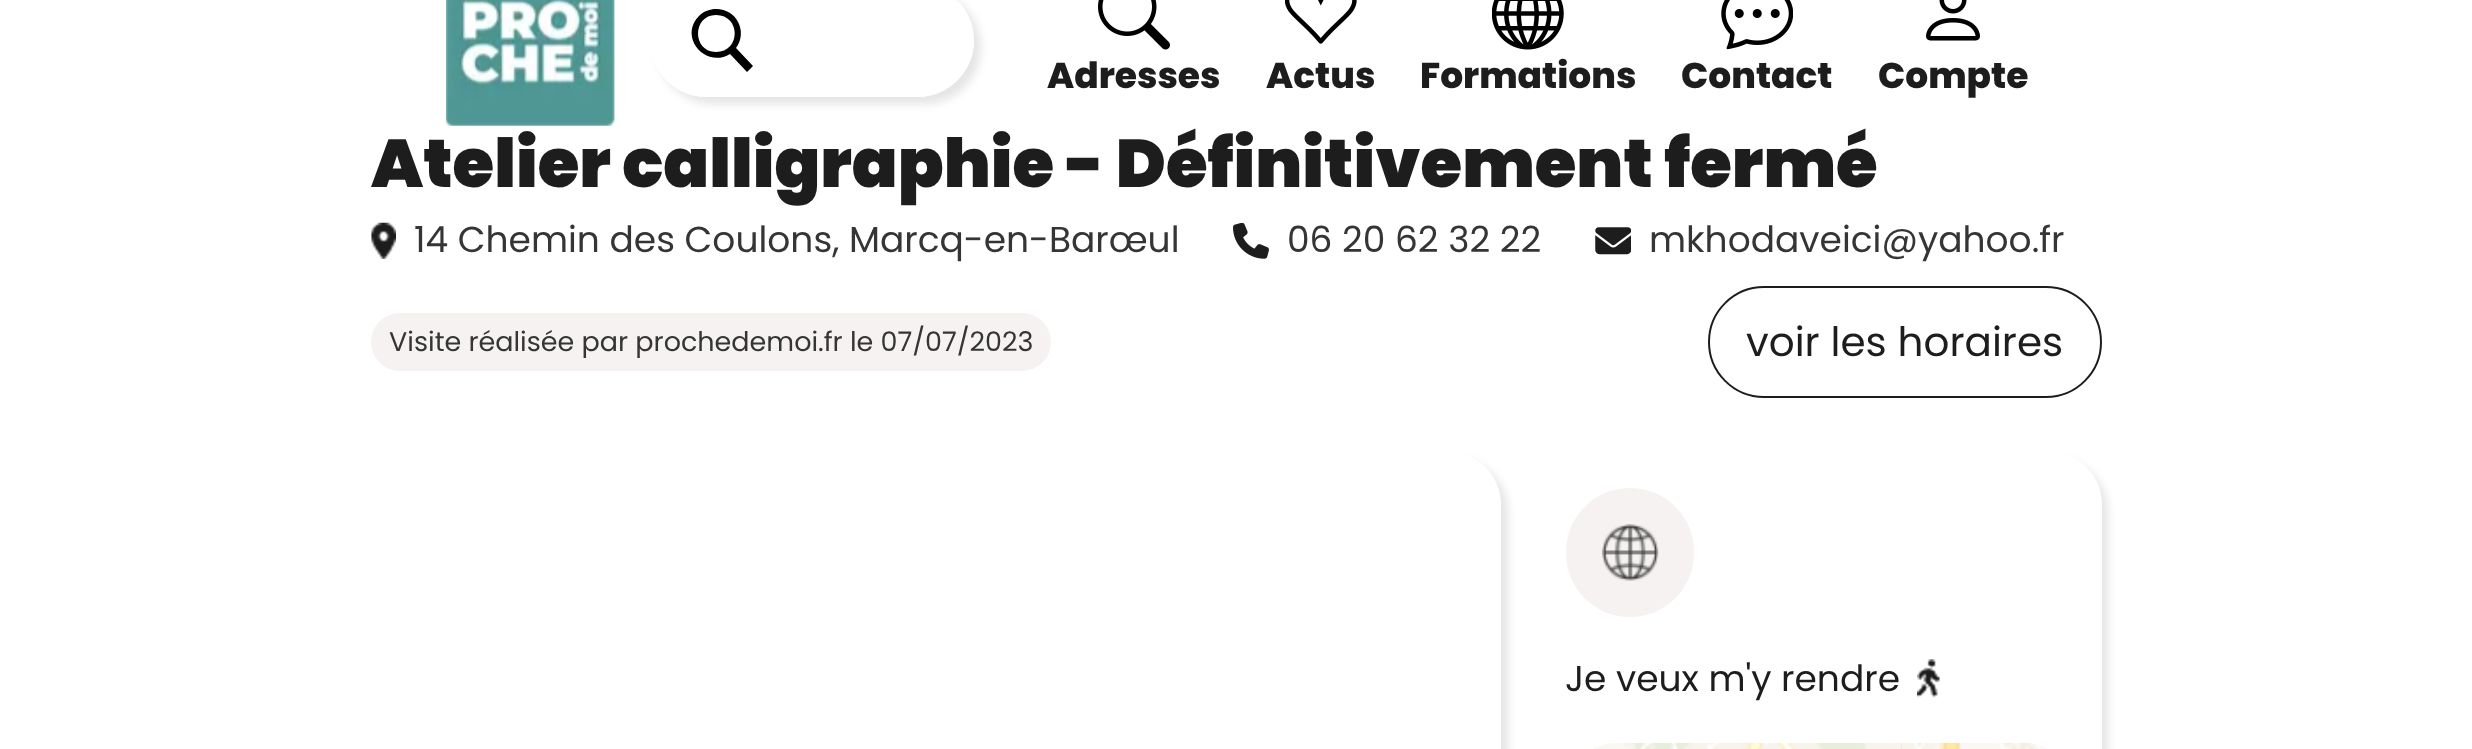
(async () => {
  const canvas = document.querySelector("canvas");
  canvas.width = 2472;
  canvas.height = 749;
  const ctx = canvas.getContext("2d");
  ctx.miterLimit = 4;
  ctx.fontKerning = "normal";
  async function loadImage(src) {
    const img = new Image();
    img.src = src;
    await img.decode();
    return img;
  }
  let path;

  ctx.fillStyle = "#ffffff";
  ctx.fillRect(0, 0, 2472, 749);
  ctx.drawImage(await loadImage("img/1.png"), 446, 0, 169, 126);
  ctx.save();
  path = new Path2D("M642 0H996V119H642ZM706.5-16H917.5C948.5-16 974 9.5 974 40.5C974 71.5 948.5 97 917.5 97H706.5C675.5 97 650 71.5 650 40.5C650 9.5 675.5-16 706.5-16Z");
  ctx.clip(path, "evenodd");
  ctx.fillStyle = "rgba(0, 0, 0, 0.1)";
  ctx.filter = "blur(4.5px)";
  ctx.beginPath();
  ctx.roundRect(657, -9, 324, 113, 56.5);
  ctx.fill();
  ctx.filter = "none";
  ctx.restore();
  ctx.fillStyle = "rgba(255, 255, 255, 0.8)";
  ctx.beginPath();
  ctx.roundRect(650, -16, 324, 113, 56.5);
  ctx.fill();
  ctx.fillStyle = "#000000";
  path = new Path2D("M716 9C710 9 704 11 699 16C678 37 706 69 730 54L747 72L753 66L736 48C748 32 737 9 716 9ZM716 15C741 15 741 52 716 52C692 52 692 15 716 15Z");
  ctx.fill(path);
  ctx.drawImage(await loadImage("img/2.png"), 1098, 0, 72, 50);
  ctx.drawImage(await loadImage("img/3.png"), 1285, 0, 72, 44);
  ctx.drawImage(await loadImage("img/4.png"), 1492, 0, 72, 50);
  ctx.drawImage(await loadImage("img/5.png"), 1721, 0, 72, 50);
  ctx.drawImage(await loadImage("img/6.png"), 1926, 0, 54, 41);
  ctx.drawImage(await loadImage("img/7.png"), 371, 222, 25, 37);
  ctx.drawImage(await loadImage("img/8.png"), 1233, 223, 36, 36);
  ctx.drawImage(await loadImage("img/9.png"), 1595, 227, 36, 28);
  ctx.fillStyle = "#f5f2f1";
  ctx.beginPath();
  ctx.roundRect(371, 313, 680, 58, 29);
  ctx.fill();
  ctx.beginPath();
  ctx.roundRect(1709, 287, 392, 110, 55);
  ctx.strokeStyle = "#1d1d1d";
  ctx.lineWidth = 2;
  ctx.stroke();
  ctx.save();
  path = new Path2D("M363 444H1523V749H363ZM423 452H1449C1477.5 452 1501 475.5 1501 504V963C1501 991.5 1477.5 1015 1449 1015H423C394.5 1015 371 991.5 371 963V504C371 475.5 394.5 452 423 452Z");
  ctx.clip(path, "evenodd");
  ctx.fillStyle = "rgba(0, 0, 0, 0.1)";
  ctx.filter = "blur(4.5px)";
  ctx.beginPath();
  ctx.roundRect(378, 459, 1130, 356, 52);
  ctx.fill();
  ctx.filter = "none";
  ctx.restore();
  ctx.save();
  path = new Path2D("M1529 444H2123V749H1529ZM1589 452H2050C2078.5 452 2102 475.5 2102 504V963C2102 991.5 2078.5 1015 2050 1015H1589C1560.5 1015 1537 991.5 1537 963V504C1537 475.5 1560.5 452 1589 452Z");
  ctx.clip(path, "evenodd");
  ctx.fillStyle = "rgba(0, 0, 0, 0.1)";
  ctx.filter = "blur(4.5px)";
  ctx.beginPath();
  ctx.roundRect(1544, 459, 564, 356, 52);
  ctx.fill();
  ctx.filter = "none";
  ctx.restore();
  ctx.beginPath();
  ctx.roundRect(1566, 488, 128, 129, 64);
  ctx.fill();
  ctx.drawImage(await loadImage("img/10.png"), 1602, 524, 57, 57);
  ctx.drawImage(await loadImage("img/11.png"), 1917, 659, 23, 39);
  ctx.fillStyle = "#dddddd";
  path = new Path2D("M1618 743H2023C2051.5 743 2075 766.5 2075 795V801H1566V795C1566 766.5 1589.5 743 1618 743Z");
  ctx.fill(path);
  ctx.drawImage(await loadImage("img/12.png"), 1593, 743, 308, 6);
  ctx.drawImage(await loadImage("img/13.png"), 1901, 743, 146, 6);
  ctx.font = "800 36px Poppins";
  ctx.fillStyle = "#1d1d1d";
  for (const [text, x, y] of [
    ["Adresses", 1047, 88],
    ["Actus", 1266, 88],
    ["Formations", 1420, 88],
    ["Contact", 1681, 88],
    ["Compte", 1878, 88],
  ]) {
    ctx.fillText(text, x, y);
  }
  ctx.font = "900 67.5px Poppins";
  ctx.fillText("Atelier calligraphie - Définitivement fermé", 371, 187);
  ctx.font = "36px Poppins";
  ctx.fillStyle = "#353535";
  for (const [text, x, y] of [
    ["14 Chemin des Coulons, Marcq-en-Barœul", 414, 252],
    ["06 20 62 32 22", 1287, 252],
    ["mkhodaveici@yahoo.fr", 1649, 252],
  ]) {
    ctx.fillText(text, x, y);
  }
  ctx.font = "27px Poppins";
  ctx.fillText("Visite réalisée par prochedemoi.fr le 07/07/2023", 389, 351);
  ctx.font = "40.5px Poppins";
  ctx.fillStyle = "#1d1d1d";
  ctx.fillText("voir les horaires", 1746, 356);
  ctx.font = "36px Poppins";
  ctx.fillText("Je veux m'y rendre", 1565, 691);
})();
